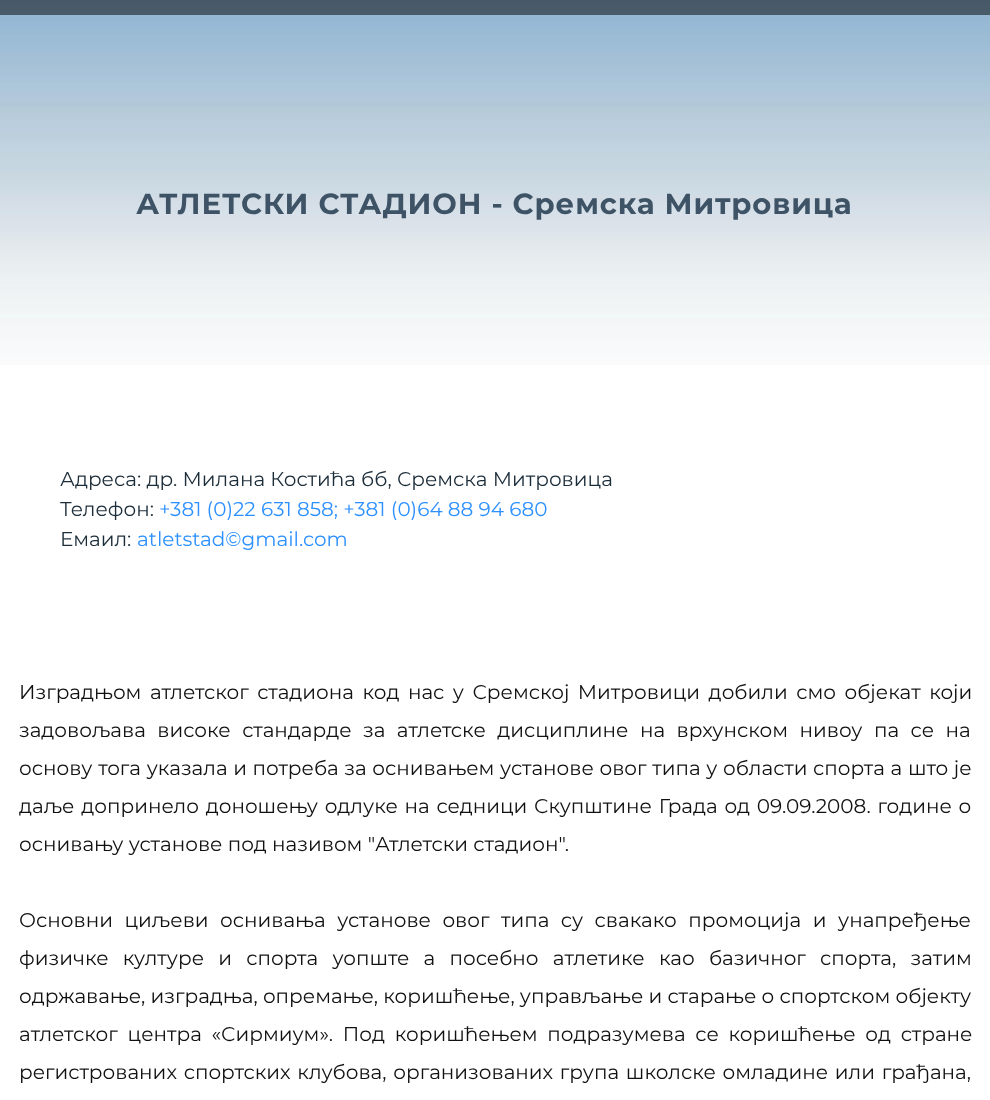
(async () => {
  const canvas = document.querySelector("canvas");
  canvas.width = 990;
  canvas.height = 1100;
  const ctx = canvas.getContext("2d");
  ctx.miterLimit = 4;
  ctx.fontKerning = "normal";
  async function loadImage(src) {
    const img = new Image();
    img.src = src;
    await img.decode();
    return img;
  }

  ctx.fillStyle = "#ffffff";
  ctx.fillRect(0, 0, 990, 1100);
  ctx.drawImage(await loadImage("img/1.png"), 0, 0, 990, 365);
  ctx.fillStyle = "rgba(0, 0, 0, 0.5)";
  ctx.fillRect(0, 0, 990, 15);
  ctx.letterSpacing = "0.85px";
  ctx.font = "bold 29.1px Montserrat";
  ctx.fillStyle = "#3e5466";
  ctx.fillText("АТЛЕТСКИ СТАДИОН - Сремска Митровица", 136, 214);
  ctx.letterSpacing = "0px";
  ctx.font = "20px Montserrat";
  ctx.fillStyle = "#1c2d3a";
  ctx.fillText("Адреса: др. Милана Костића бб, Сремска Митровица", 60, 486);
  ctx.fillText("Телефон:", 60, 516);
  ctx.fillStyle = "#2c90ff";
  ctx.fillText("+381 (0)22 631 858; +381 (0)64 88 94 680", 159, 516);
  ctx.fillStyle = "#1c2d3a";
  ctx.fillText("Емаил:", 60, 546);
  ctx.fillStyle = "#2c90ff";
  ctx.fillText("atletstad©gmail.com", 137, 546);
  ctx.wordSpacing = "3.25px";
  ctx.fillStyle = "#111111";
  ctx.fillText("Изградњом атлетског стадиона код нас у Сремској Митровици добили смо објекат који", 19, 699);
  ctx.wordSpacing = "6.25px";
  ctx.fillText("задовољава високе стандарде за атлетске дисциплине на врхунском нивоу па се на", 19, 737);
  ctx.wordSpacing = "0.4px";
  ctx.fillText("основу тога указала и потреба за оснивањем установе овог типа у области спорта а што је", 19, 775);
  ctx.wordSpacing = "1.5px";
  ctx.fillText("даље допринело доношењу одлуке на седници Скупштине Града од 09.09.2008. године о", 19, 813);
  ctx.wordSpacing = "0px";
  ctx.fillText("оснивању установе под називом \"Атлетски стадион\".", 19, 851);
  ctx.wordSpacing = "6.25px";
  ctx.fillText("Основни циљеви оснивања установе овог типа су свакако промоција и унапређење", 19, 927);
  ctx.wordSpacing = "9px";
  ctx.fillText("физичке културе и спорта уопште а посебно атлетике као базичног спорта, затим", 19, 965);
  ctx.wordSpacing = "0px";
  ctx.fillText("одржавање, изградња, опремање, коришћење, управљање и старање о спортском објекту", 19, 1003);
  ctx.wordSpacing = "4.5px";
  ctx.fillText("атлетског центра «Сирмиум». Под коришћењем подразумева се коришћење од стране", 19, 1041);
  ctx.wordSpacing = "1.5px";
  ctx.fillText("регистрованих спортских клубова, организованих група школске омладине или грађана,", 19, 1079);
})();
